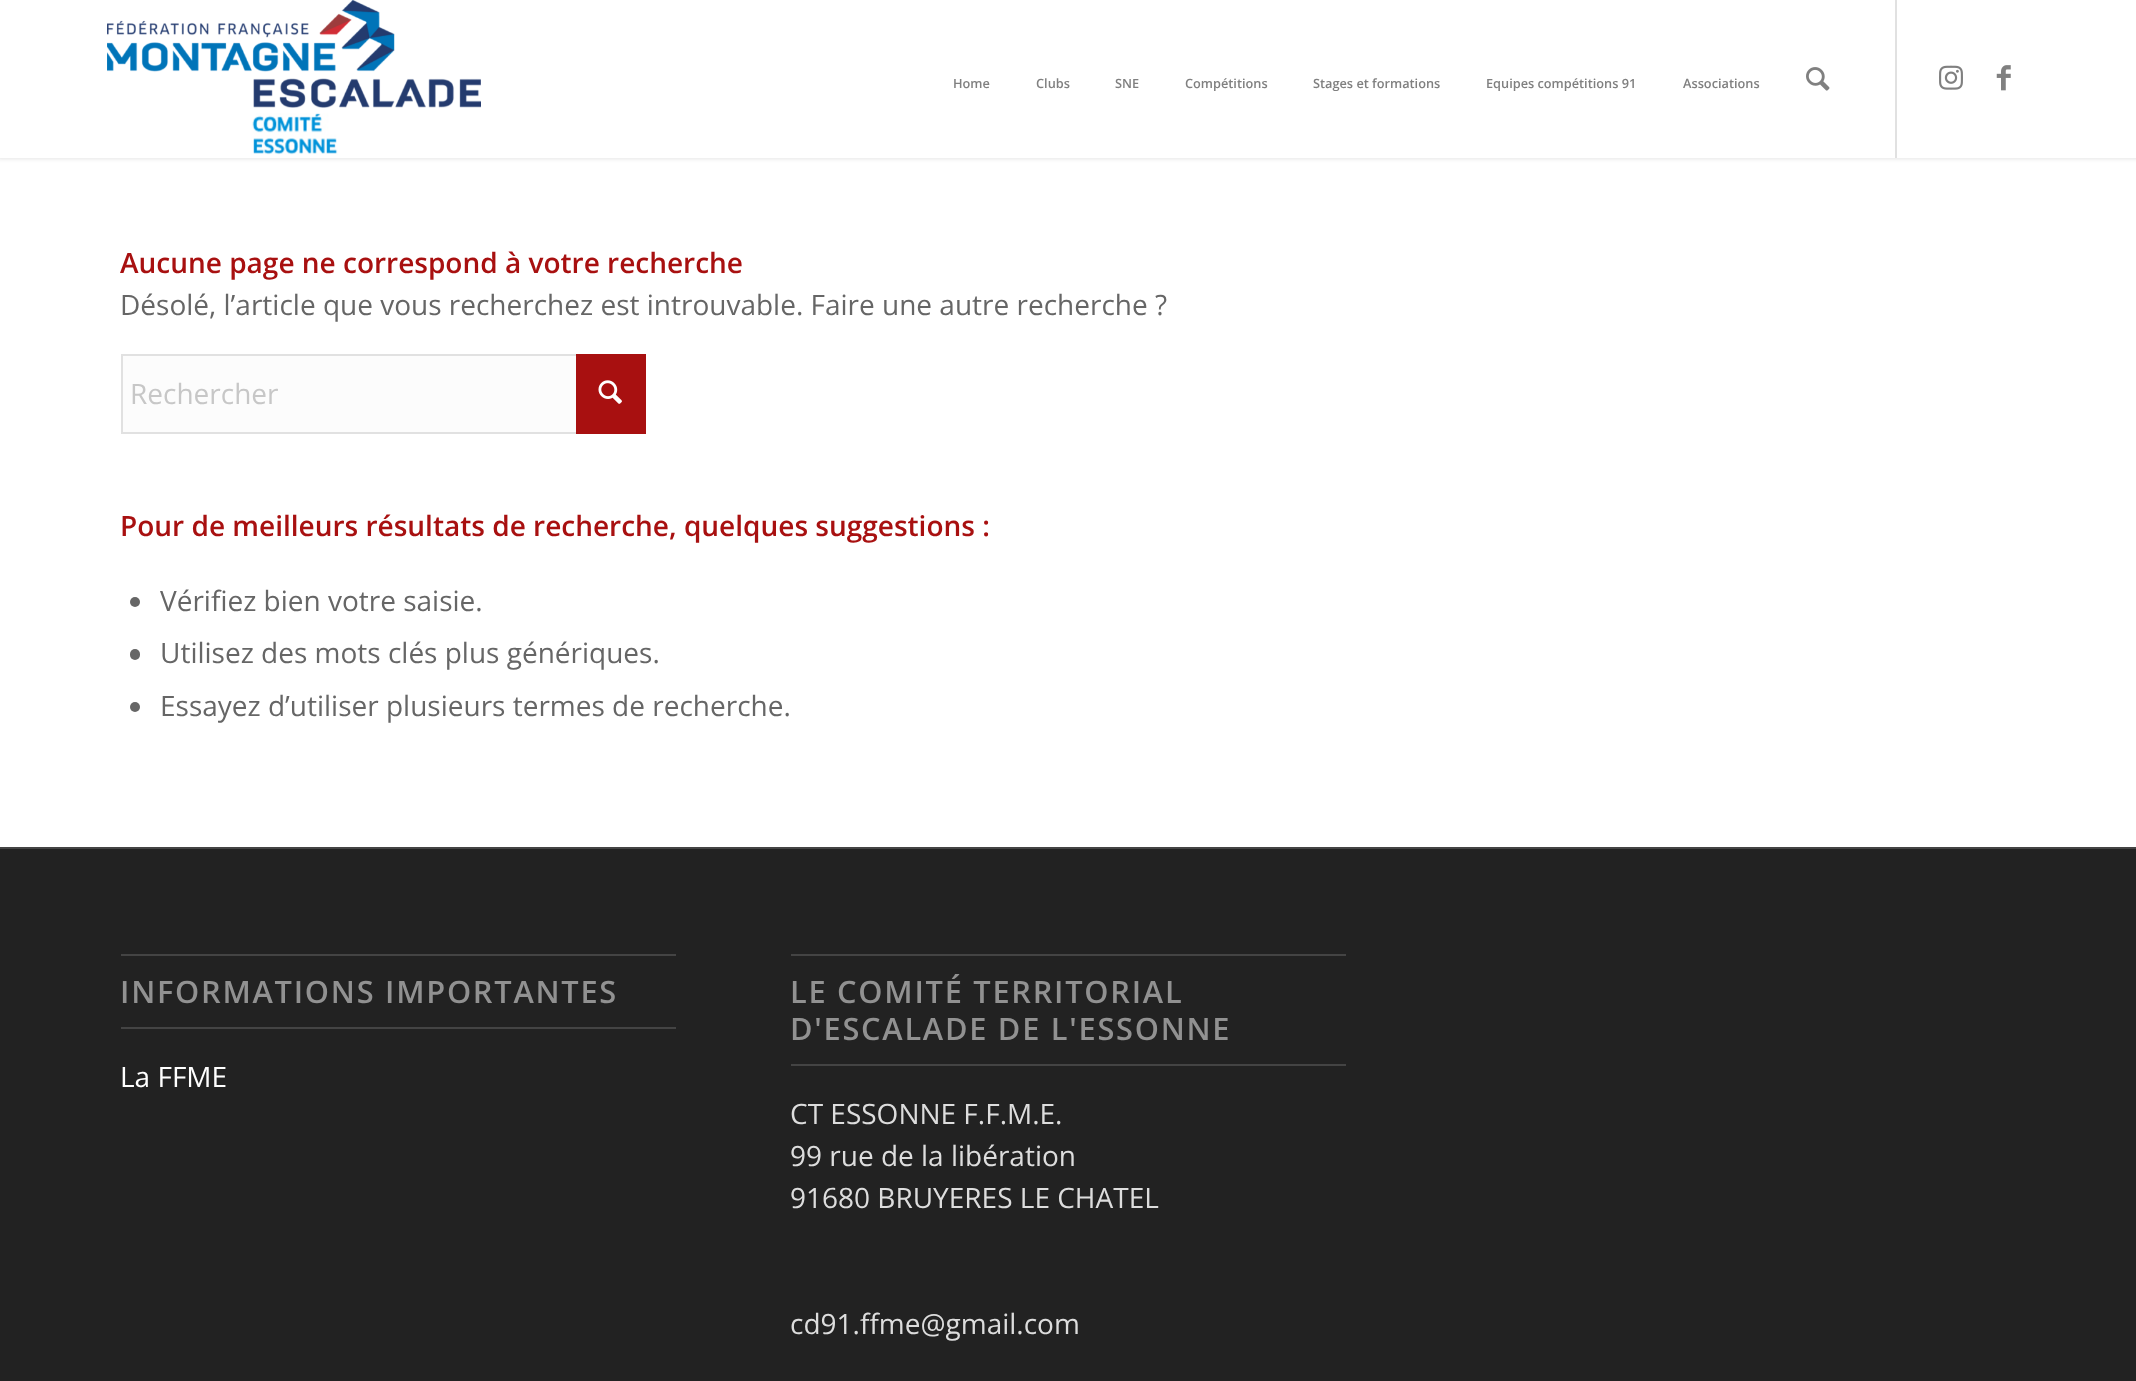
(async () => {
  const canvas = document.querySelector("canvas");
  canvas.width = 2136;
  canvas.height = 1381;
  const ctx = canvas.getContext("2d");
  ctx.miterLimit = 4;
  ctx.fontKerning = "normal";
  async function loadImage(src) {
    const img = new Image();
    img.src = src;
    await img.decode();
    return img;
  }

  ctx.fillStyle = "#ffffff";
  ctx.fillRect(0, 0, 2136, 1381);
  ctx.fillStyle = "rgba(0, 0, 0, 0.1)";
  ctx.filter = "blur(2px)";
  ctx.beginPath();
  ctx.rect(-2, -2, 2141, 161);
  ctx.fill();
  ctx.filter = "none";
  ctx.fillStyle = "#ffffff";
  ctx.fillRect(0, 0, 2136, 158);
  ctx.drawImage(await loadImage("img/1.png"), 107, 0, 374, 155);
  ctx.fillStyle = "#e1e1e1";
  ctx.fillRect(1895, 0, 2, 158);
  ctx.drawImage(await loadImage("img/2.png"), 1806, 67, 24, 24);
  ctx.drawImage(await loadImage("img/3.png"), 1939, 65, 24, 25);
  ctx.drawImage(await loadImage("img/4.png"), 1996, 65, 15, 26);
  ctx.fillStyle = "#fcfcfc";
  ctx.fillRect(123, 356, 453, 76);
  ctx.strokeStyle = "#e1e1e1";
  ctx.lineWidth = 2;
  ctx.strokeRect(122, 355, 523, 78);
  ctx.fillStyle = "#a81010";
  ctx.fillRect(576, 354, 70, 80);
  ctx.drawImage(await loadImage("img/5.png"), 598, 380, 24, 24);
  ctx.fillStyle = "#666666";
  ctx.beginPath();
  ctx.arc(135, 602, 5, 0, Math.PI * 2);
  ctx.fill();
  ctx.beginPath();
  ctx.roundRect(130, 649, 10, 11, 5);
  ctx.fill();
  ctx.beginPath();
  ctx.arc(135, 707, 5, 0, Math.PI * 2);
  ctx.fill();
  for (const [x, y, w, h, color] of [
    [0, 849, 2136, 532, "#222222"],
    [0, 847, 2136, 2, "#444444"],
    [121, 954, 555, 2, "#444444"],
    [121, 1027, 555, 2, "#444444"],
    [791, 954, 555, 2, "#444444"],
    [791, 1064, 555, 2, "#444444"],
  ]) {
    ctx.fillStyle = color;
    ctx.fillRect(x, y, w, h);
  }
  ctx.font = "600 12.75px Open Sans";
  ctx.fillStyle = "#808080";
  for (const [text, x, y] of [
    ["Home", 953, 88],
    ["Clubs", 1036, 88],
    ["SNE", 1115, 88],
    ["Compétitions", 1185, 88],
    ["Stages et formations", 1313, 88],
    ["Equipes compétitions 91", 1486, 88],
    ["Associations", 1683, 88],
  ]) {
    ctx.fillText(text, x, y);
  }
  ctx.font = "600 28px Open Sans";
  ctx.fillStyle = "#a81010";
  ctx.fillText("Aucune page ne correspond à votre recherche", 120, 273);
  ctx.font = "28px Open Sans";
  ctx.fillStyle = "#666666";
  ctx.fillText("Désolé, l’article que vous recherchez est introuvable. Faire une autre recherche ?", 120, 315);
  ctx.fillStyle = "#c7c7c7";
  ctx.fillText("Rechercher", 130, 404);
  ctx.font = "600 28px Open Sans";
  ctx.fillStyle = "#a81010";
  ctx.fillText("Pour de meilleurs résultats de recherche, quelques suggestions :", 120, 536);
  ctx.font = "28px Open Sans";
  ctx.fillStyle = "#666666";
  for (const [text, x, y] of [
    ["Vérifiez bien votre saisie.", 160, 611],
    ["Utilisez des mots clés plus génériques.", 160, 663],
    ["Essayez d’utiliser plusieurs termes de recherche.", 160, 716],
  ]) {
    ctx.fillText(text, x, y);
  }
  ctx.letterSpacing = "1.75px";
  ctx.font = "600 30.75px Open Sans";
  ctx.fillStyle = "#919191";
  ctx.fillText("INFORMATIONS IMPORTANTES", 120, 1003);
  ctx.letterSpacing = "0px";
  ctx.font = "28px Open Sans";
  ctx.fillStyle = "#ffffff";
  ctx.fillText("La FFME", 120, 1087);
  ctx.letterSpacing = "1.75px";
  ctx.font = "600 30.75px Open Sans";
  ctx.fillStyle = "#919191";
  ctx.fillText("LE COMITÉ TERRITORIAL", 790, 1003);
  ctx.fillText("D'ESCALADE DE L'ESSONNE", 790, 1040);
  ctx.letterSpacing = "0px";
  ctx.font = "28px Open Sans";
  ctx.fillStyle = "#dddddd";
  for (const [text, x, y] of [
    ["CT ESSONNE F.F.M.E.", 790, 1124],
    ["99 rue de la libération", 790, 1166],
    ["91680 BRUYERES LE CHATEL", 790, 1208],
    ["cd91.ffme@gmail.com", 790, 1334],
  ]) {
    ctx.fillText(text, x, y);
  }
})();
